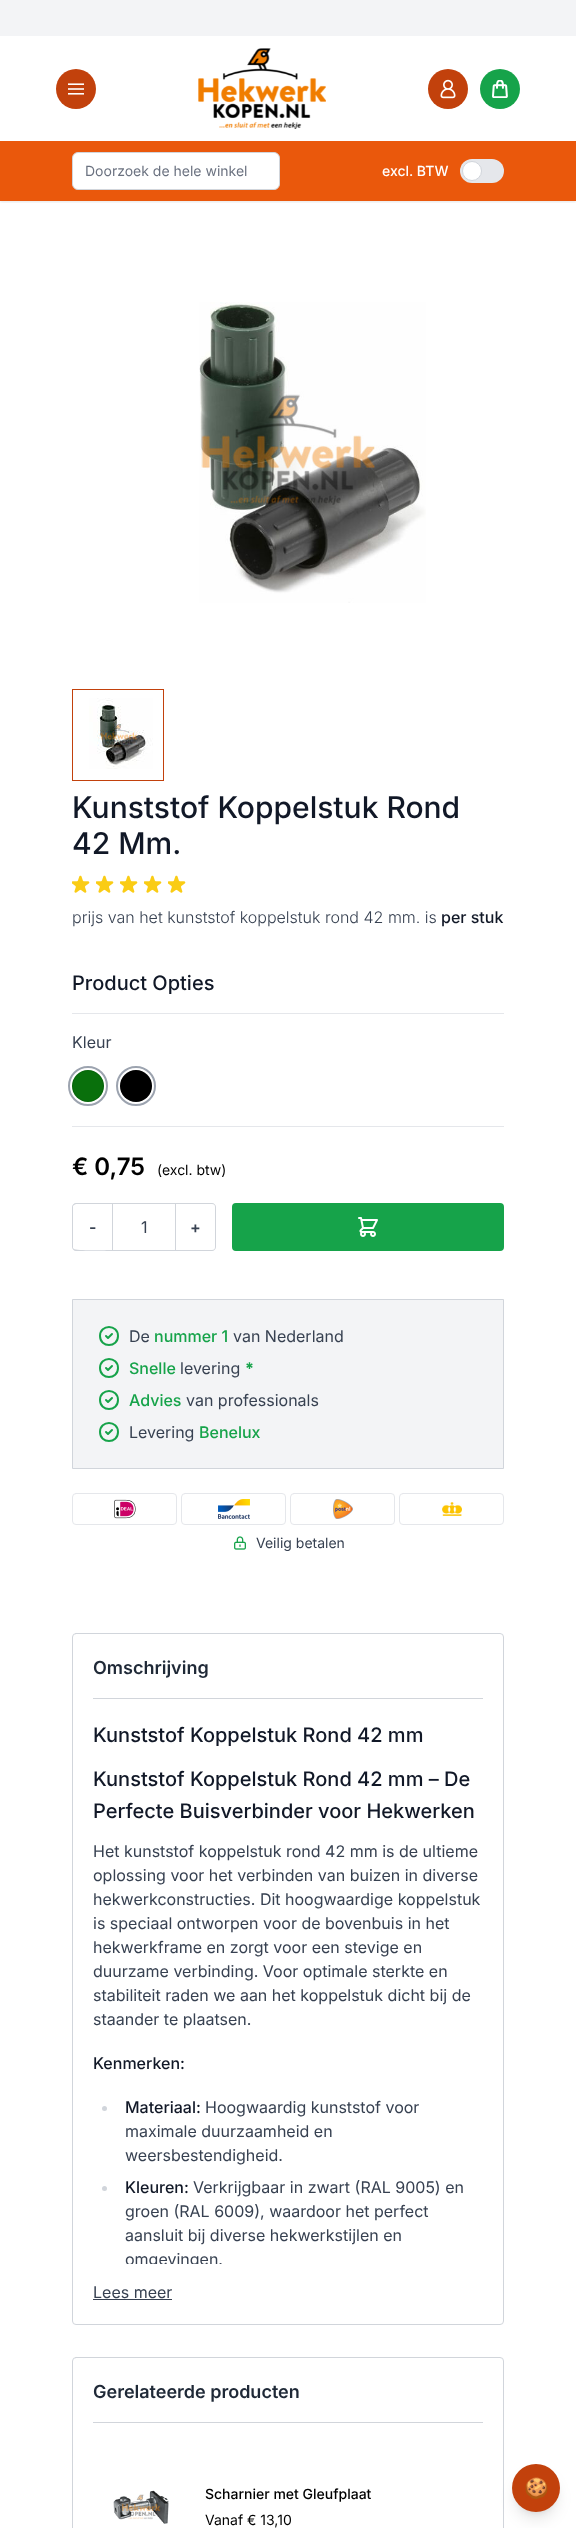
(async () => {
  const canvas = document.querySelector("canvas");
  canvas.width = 576;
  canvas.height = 2528;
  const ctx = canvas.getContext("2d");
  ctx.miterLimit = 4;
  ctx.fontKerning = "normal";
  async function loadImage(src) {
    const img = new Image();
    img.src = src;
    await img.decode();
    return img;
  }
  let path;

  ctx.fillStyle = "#ffffff";
  ctx.fillRect(0, 0, 576, 2528);
  ctx.fillStyle = "#f3f4f6";
  ctx.fillRect(0, 0, 576, 36);
  ctx.save();
  ctx.beginPath();
  ctx.rect(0, 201, 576, 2);
  ctx.clip();
  ctx.fillStyle = "rgba(0, 0, 0, 0.1)";
  ctx.filter = "blur(1.5px)";
  ctx.beginPath();
  ctx.rect(0, 37, 576, 165);
  ctx.fill();
  ctx.filter = "none";
  ctx.restore();
  ctx.fillStyle = "#c2410c";
  ctx.beginPath();
  ctx.arc(76, 89, 20, 0, Math.PI * 2);
  ctx.fill();
  ctx.drawImage(await loadImage("img/1.png"), 68, 83, 16, 12);
  ctx.drawImage(await loadImage("img/2.png"), 198, 48, 128, 81);
  ctx.beginPath();
  ctx.arc(448, 89, 20, 0, Math.PI * 2);
  ctx.fill();
  ctx.drawImage(await loadImage("img/3.png"), 440, 79, 16, 20);
  ctx.fillStyle = "#16a34a";
  ctx.beginPath();
  ctx.arc(500, 89, 20, 0, Math.PI * 2);
  ctx.fill();
  ctx.drawImage(await loadImage("img/4.png"), 492, 80, 16, 18);
  ctx.fillStyle = "#ea580c";
  ctx.fillRect(0, 141, 576, 60);
  ctx.fillStyle = "#ffffff";
  ctx.beginPath();
  ctx.roundRect(72.5, 152.5, 207, 37, 5.5);
  ctx.fill();
  ctx.strokeStyle = "#d1d5db";
  ctx.stroke();
  ctx.fillStyle = "#e5e7eb";
  ctx.beginPath();
  ctx.roundRect(460, 159, 44, 24, 12);
  ctx.fill();
  ctx.fillStyle = "#ffffff";
  ctx.beginPath();
  ctx.arc(472, 171, 9.5, 0, Math.PI * 2);
  ctx.fill();
  ctx.stroke();
  ctx.drawImage(await loadImage("img/5.png"), 199, 302, 227, 301);
  ctx.strokeStyle = "#c2410c";
  ctx.strokeRect(72.5, 689.5, 91, 91);
  ctx.drawImage(await loadImage("img/6.png"), 89, 698, 64, 71);
  ctx.drawImage(await loadImage("img/7.png"), 72, 875, 18, 18);
  ctx.drawImage(await loadImage("img/7.png"), 96, 875, 18, 18);
  ctx.drawImage(await loadImage("img/7.png"), 120, 875, 18, 18);
  ctx.drawImage(await loadImage("img/7.png"), 144, 875, 18, 18);
  ctx.drawImage(await loadImage("img/7.png"), 168, 875, 18, 18);
  ctx.fillStyle = "#e5e7eb";
  ctx.fillRect(72, 1013, 432, 1);
  ctx.fillRect(72, 1126, 432, 1);
  ctx.beginPath();
  ctx.arc(88, 1086, 19, 0, Math.PI * 2);
  ctx.strokeStyle = "#9ca3af";
  ctx.lineWidth = 2;
  ctx.stroke();
  ctx.fillStyle = "#09700c";
  ctx.beginPath();
  ctx.arc(88, 1086, 16, 0, Math.PI * 2);
  ctx.fill();
  ctx.beginPath();
  ctx.arc(88, 1086, 15.5, 0, Math.PI * 2);
  ctx.strokeStyle = "rgba(0, 0, 0, 0.1)";
  ctx.lineWidth = 1;
  ctx.stroke();
  ctx.beginPath();
  ctx.arc(136, 1086, 19, 0, Math.PI * 2);
  ctx.strokeStyle = "#9ca3af";
  ctx.lineWidth = 2;
  ctx.stroke();
  ctx.fillStyle = "#000000";
  ctx.beginPath();
  ctx.arc(136, 1086, 16, 0, Math.PI * 2);
  ctx.fill();
  ctx.beginPath();
  ctx.arc(136, 1086, 15.5, 0, Math.PI * 2);
  ctx.strokeStyle = "rgba(0, 0, 0, 0.1)";
  ctx.lineWidth = 1;
  ctx.stroke();
  ctx.fillStyle = "#d1d5db";
  path = new Path2D("M76 1203H112V1251H76C74 1251 72 1249 72 1247V1207C72 1205 74 1203 76 1203ZM76 1204H112V1250C107 1250 76 1251 74 1249L73 1248V1206L74 1205Z");
  ctx.fill(path, "evenodd");
  ctx.strokeStyle = "#d1d5db";
  ctx.strokeRect(112.5, 1203.5, 63, 47);
  path = new Path2D("M176 1203H212C214 1203 216 1205 216 1207V1247C216 1249 214 1251 212 1251H176ZM176 1204H212C214 1204 215 1205 215 1207V1247C215 1249 214 1250 212 1250H176Z");
  ctx.fill(path, "evenodd");
  ctx.fillStyle = "#16a34a";
  ctx.beginPath();
  ctx.roundRect(233, 1204, 270, 46, 3);
  ctx.fill();
  ctx.strokeStyle = "#16a34a";
  ctx.lineWidth = 2;
  ctx.stroke();
  ctx.drawImage(await loadImage("img/8.png"), 358, 1217, 20, 20);
  ctx.fillStyle = "#f3f4f6";
  ctx.beginPath();
  ctx.rect(72.5, 1299.5, 431, 169);
  ctx.fill();
  ctx.strokeStyle = "#d1d5db";
  ctx.lineWidth = 1;
  ctx.stroke();
  path = new Path2D("M106 1336L108 1338L112 1334M118 1336C118 1348 100 1348 100 1336C100 1324 118 1324 118 1336ZM106 1368L108 1370L112 1366M118 1368C118 1380 100 1380 100 1368C100 1356 118 1356 118 1368Z");
  ctx.strokeStyle = "#16a34a";
  ctx.lineWidth = 2;
  ctx.lineCap = "round";
  ctx.lineJoin = "round";
  ctx.stroke(path);
  path = new Path2D("M106 1400L108 1402L112 1398M118 1400C118 1412 100 1412 100 1400C100 1388 118 1388 118 1400ZM106 1432L108 1434L112 1430M118 1432C118 1444 100 1444 100 1432C100 1420 118 1420 118 1432Z");
  ctx.stroke(path);
  ctx.beginPath();
  ctx.roundRect(72.5, 1493.5, 104, 31, 3.5);
  ctx.strokeStyle = "#e5e7eb";
  ctx.lineWidth = 1;
  ctx.lineJoin = "miter";
  ctx.stroke();
  ctx.drawImage(await loadImage("img/9.png"), 114, 1499, 22, 20);
  ctx.beginPath();
  ctx.roundRect(181.5, 1493.5, 104, 31, 3.5);
  ctx.stroke();
  ctx.drawImage(await loadImage("img/10.png"), 218, 1499, 32, 20);
  ctx.beginPath();
  ctx.roundRect(290.5, 1493.5, 104, 31, 3.5);
  ctx.stroke();
  ctx.drawImage(await loadImage("img/11.png"), 333, 1499, 20, 20);
  ctx.beginPath();
  ctx.roundRect(399.5, 1493.5, 104, 31, 3.5);
  ctx.stroke();
  ctx.drawImage(await loadImage("img/12.png"), 442, 1502, 20, 14);
  ctx.drawImage(await loadImage("img/13.png"), 234, 1536, 12, 14);
  ctx.beginPath();
  ctx.roundRect(72.5, 1633.5, 431, 691, 3.5);
  ctx.strokeStyle = "#d1d5db";
  ctx.stroke();
  ctx.fillStyle = "#d1d5db";
  ctx.fillRect(93, 1698, 390, 1);
  ctx.beginPath();
  ctx.arc(104.5, 2108.5, 2.5, 0, Math.PI * 2);
  ctx.fill();
  ctx.beginPath();
  ctx.arc(104.5, 2188.5, 2.5, 0, Math.PI * 2);
  ctx.fill();
  ctx.fillStyle = "#374151";
  ctx.fillRect(93, 2299, 79, 1);
  ctx.beginPath();
  ctx.roundRect(72.5, 2357.5, 431, 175, 3.5);
  ctx.stroke();
  ctx.fillStyle = "#d1d5db";
  ctx.fillRect(93, 2422, 390, 1);
  ctx.drawImage(await loadImage("img/14.png"), 113, 2490, 56, 34);
  ctx.fillStyle = "rgba(0, 0, 0, 0.1)";
  ctx.filter = "blur(3px)";
  ctx.beginPath();
  ctx.roundRect(516, 2472, 40, 40, 20);
  ctx.fill();
  ctx.filter = "none";
  ctx.filter = "blur(7.5px)";
  ctx.beginPath();
  ctx.roundRect(515, 2477, 42, 42, 21);
  ctx.fill();
  ctx.filter = "none";
  ctx.fillStyle = "#c2410c";
  ctx.beginPath();
  ctx.arc(536, 2488, 24, 0, Math.PI * 2);
  ctx.fill();
  ctx.font = "14px Inter";
  ctx.fillStyle = "#6b7280";
  ctx.fillText("Doorzoek de hele winkel", 85, 176);
  ctx.font = "500 14px Inter";
  ctx.fillStyle = "#ffffff";
  ctx.fillText("excl. BTW", 382, 176);
  ctx.font = "500 30px Inter";
  ctx.fillStyle = "#111827";
  ctx.fillText("Kunststof Koppelstuk Rond", 72, 818);
  ctx.fillText("42 Mm.", 72, 854);
  ctx.font = "300 16px Inter";
  ctx.fillStyle = "#374151";
  ctx.fillText("prijs van het kunststof koppelstuk rond 42 mm. is", 72, 923);
  ctx.font = "500 16px Inter";
  ctx.fillStyle = "#111827";
  ctx.fillText("per stuk", 441, 923);
  ctx.font = "500 20px Inter";
  ctx.fillText("Product Opties", 72, 990);
  ctx.font = "16px Inter";
  ctx.fillStyle = "#374151";
  ctx.fillText("Kleur", 72, 1048);
  ctx.font = "600 24px Inter";
  ctx.fillStyle = "#000000";
  ctx.fillText("€ 0,75", 72, 1175);
  ctx.font = "14px Inter";
  ctx.fillText("(excl. btw)", 157, 1175);
  ctx.font = "600 16px Inter";
  ctx.fillStyle = "#374151";
  ctx.fillText("-", 89, 1233);
  ctx.font = "16px Inter";
  ctx.fillText("1", 141, 1233);
  ctx.font = "600 16px Inter";
  ctx.fillText("+", 190, 1233);
  ctx.font = "16px Inter";
  ctx.fillText("De", 129, 1342);
  ctx.font = "500 16px Inter";
  ctx.fillStyle = "#16a34a";
  ctx.fillText("nummer 1", 154, 1342);
  ctx.font = "16px Inter";
  ctx.fillStyle = "#374151";
  ctx.fillText("van Nederland", 233, 1342);
  ctx.font = "500 16px Inter";
  ctx.fillStyle = "#16a34a";
  ctx.fillText("Snelle", 129, 1374);
  ctx.font = "16px Inter";
  ctx.fillStyle = "#374151";
  ctx.fillText("levering", 180, 1374);
  ctx.font = "bold 16px Inter";
  ctx.fillStyle = "#16a34a";
  ctx.fillText("*", 245, 1374);
  ctx.font = "500 16px Inter";
  ctx.fillText("Advies", 129, 1406);
  ctx.font = "16px Inter";
  ctx.fillStyle = "#374151";
  ctx.fillText("van professionals", 186, 1406);
  ctx.fillText("Levering", 129, 1438);
  ctx.font = "500 16px Inter";
  ctx.fillStyle = "#16a34a";
  ctx.fillText("Benelux", 199, 1438);
  ctx.font = "14px Inter";
  ctx.fillStyle = "#374151";
  ctx.fillText("Veilig betalen", 256, 1548);
  ctx.font = "600 18px Inter";
  ctx.fillStyle = "#1f2937";
  ctx.fillText("Omschrijving", 93, 1674);
  ctx.font = "500 20px Inter";
  ctx.fillStyle = "#111827";
  for (const [text, x, y] of [
    ["Kunststof Koppelstuk Rond 42 mm", 93, 1742],
    ["Kunststof Koppelstuk Rond 42 mm – De", 93, 1786],
    ["Perfecte Buisverbinder voor Hekwerken", 93, 1818],
  ]) {
    ctx.fillText(text, x, y);
  }
  ctx.font = "16px Inter";
  ctx.fillStyle = "#374151";
  for (const [text, x, y] of [
    ["Het kunststof koppelstuk rond 42 mm is de ultieme", 93, 1857],
    ["oplossing voor het verbinden van buizen in diverse", 93, 1881],
    ["hekwerkconstructies. Dit hoogwaardige koppelstuk", 93, 1905],
    ["is speciaal ontworpen voor de bovenbuis in het", 93, 1929],
    ["hekwerkframe en zorgt voor een stevige en", 93, 1953],
    ["duurzame verbinding. Voor optimale sterkte en", 93, 1977],
    ["stabiliteit raden we aan het koppelstuk dicht bij de", 93, 2001],
    ["staander te plaatsen.", 93, 2025],
  ]) {
    ctx.fillText(text, x, y);
  }
  ctx.font = "500 16px Inter";
  ctx.fillStyle = "#111827";
  ctx.fillText("Kenmerken:", 93, 2069);
  ctx.fillText("Materiaal:", 125, 2113);
  ctx.font = "16px Inter";
  ctx.fillStyle = "#374151";
  for (const [text, x, y] of [
    ["Hoogwaardig kunststof voor", 205, 2113],
    ["maximale duurzaamheid en", 125, 2137],
    ["weersbestendigheid.", 125, 2161],
  ]) {
    ctx.fillText(text, x, y);
  }
  ctx.font = "500 16px Inter";
  ctx.fillStyle = "#111827";
  ctx.fillText("Kleuren:", 125, 2193);
  ctx.font = "16px Inter";
  ctx.fillStyle = "#374151";
  for (const [text, x, y] of [
    ["Verkrijgbaar in zwart (RAL 9005) en", 193, 2193],
    ["groen (RAL 6009), waardoor het perfect", 125, 2217],
    ["aansluit bij diverse hekwerkstijlen en", 125, 2241],
  ]) {
    ctx.fillText(text, x, y);
  }
  ctx.save();
  ctx.beginPath();
  ctx.rect(93, 1719, 390, 545);
  ctx.clip();
  ctx.fillText("omgevingen.", 125, 2265);
  ctx.restore();
  ctx.fillText("Lees meer", 93, 2298);
  ctx.font = "600 18px Inter";
  ctx.fillStyle = "#1f2937";
  ctx.fillText("Gerelateerde producten", 93, 2398);
  ctx.font = "500 14px Inter";
  ctx.fillStyle = "#000000";
  ctx.fillText("Scharnier met Gleufplaat", 205, 2499);
  ctx.font = "14px Inter";
  ctx.fillText("Vanaf € 13,10", 205, 2525);
  ctx.font = "20px Noto Color Emoji";
  ctx.fillText("🍪", 524, 2495);
})();
